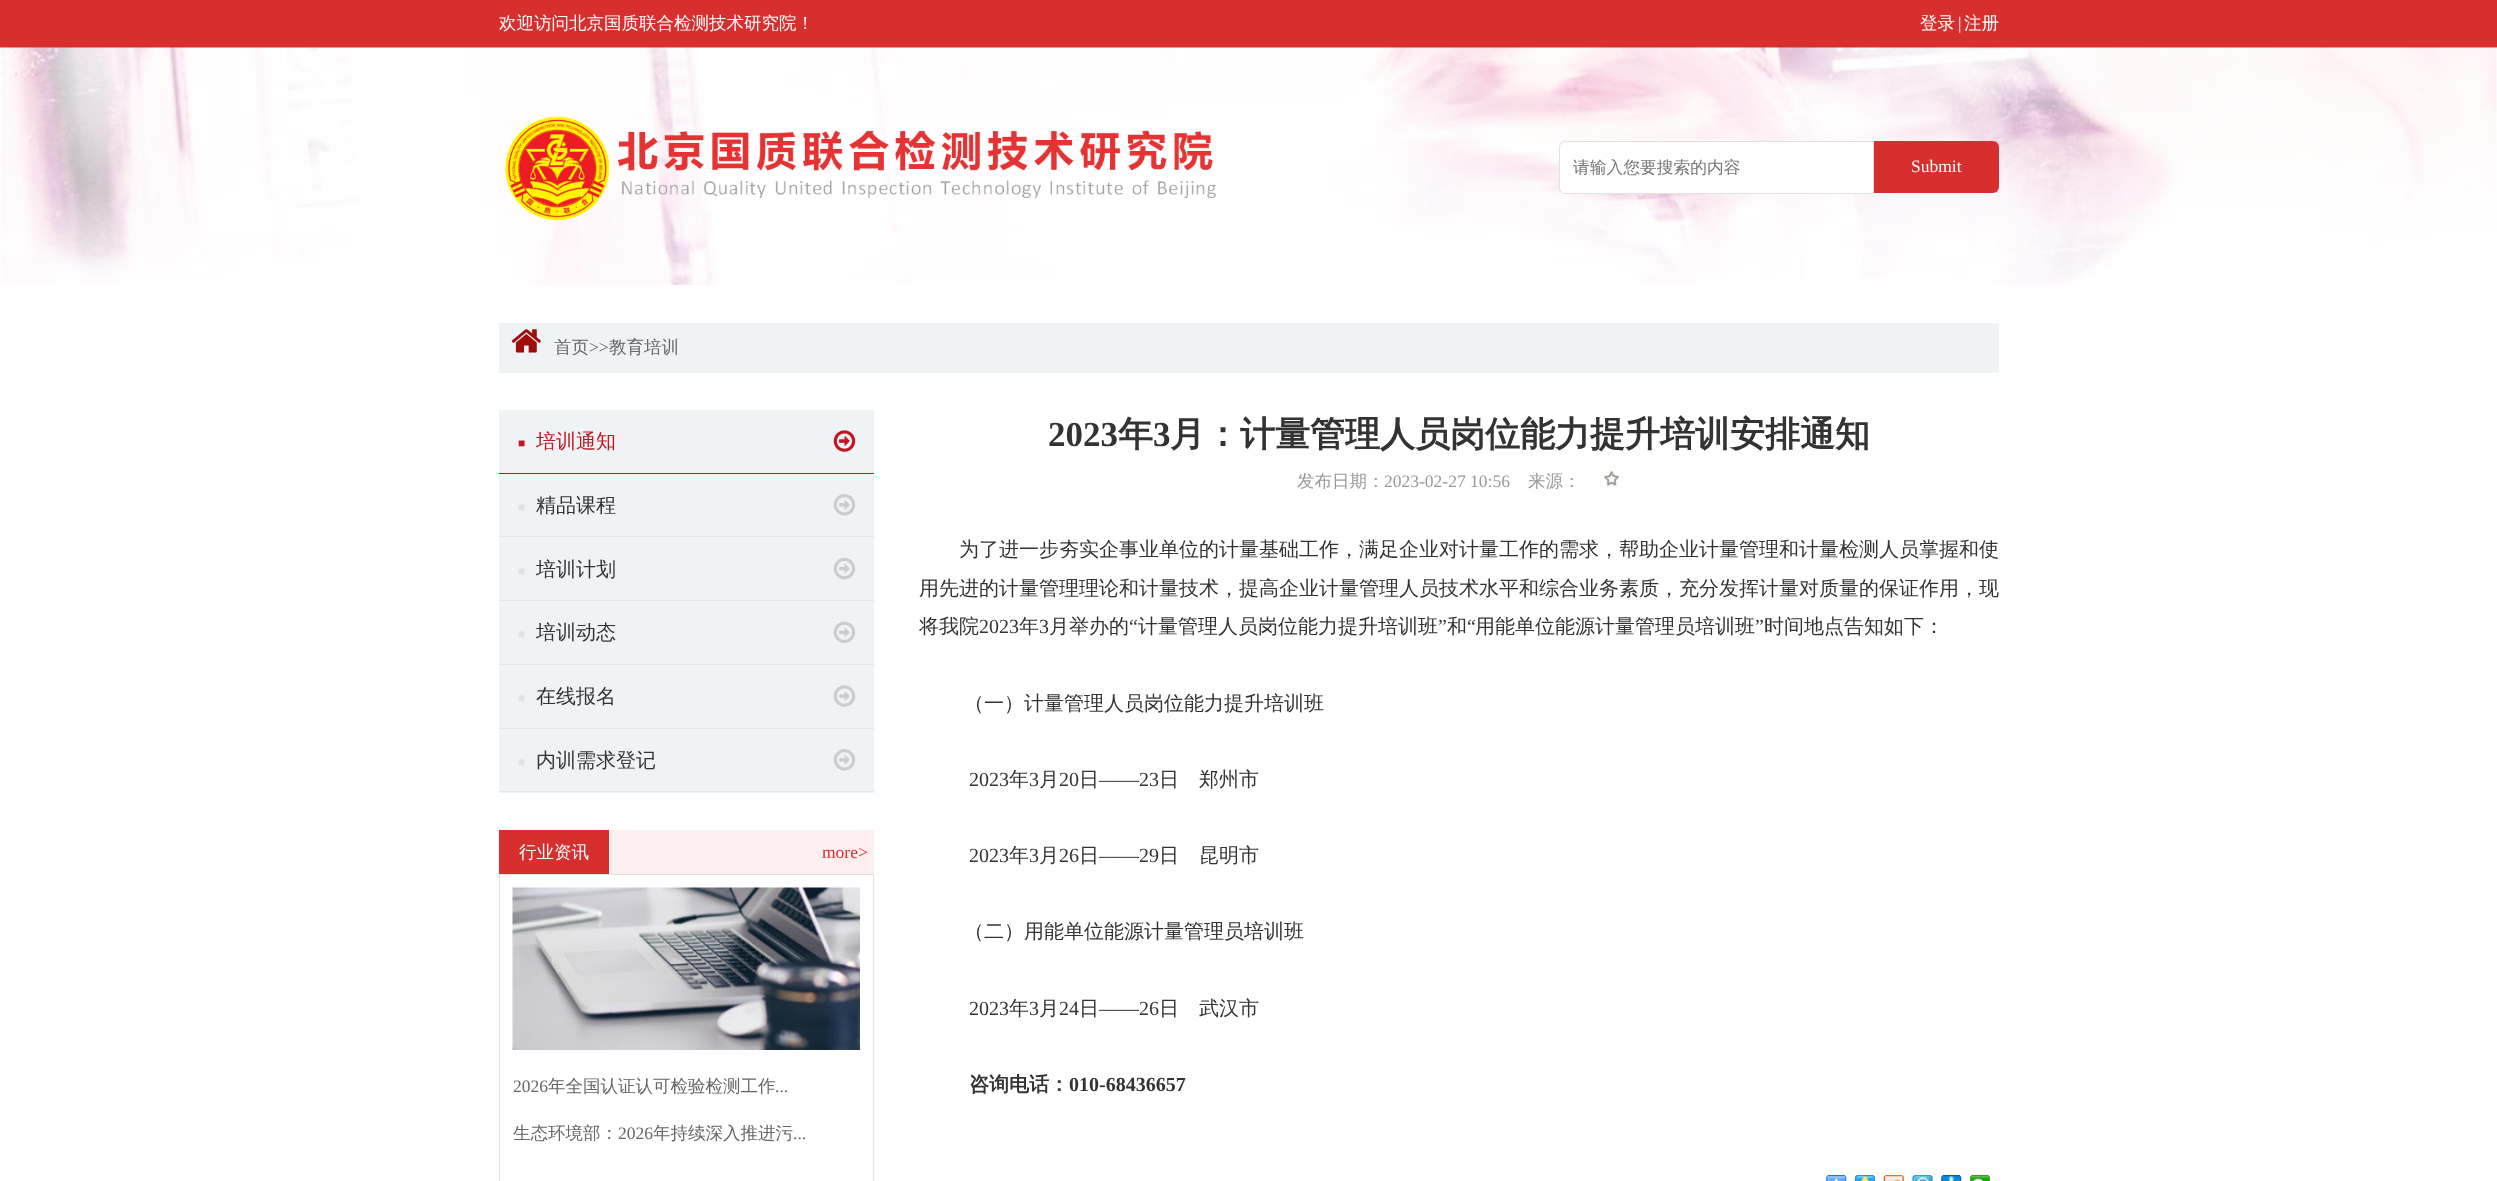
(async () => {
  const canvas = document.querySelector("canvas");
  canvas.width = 2497;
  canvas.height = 1181;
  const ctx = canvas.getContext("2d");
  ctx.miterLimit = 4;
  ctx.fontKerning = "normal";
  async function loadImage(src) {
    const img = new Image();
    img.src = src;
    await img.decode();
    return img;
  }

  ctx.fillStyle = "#ffffff";
  ctx.fillRect(0, 0, 2497, 1181);
  ctx.fillStyle = "#d72e2e";
  ctx.fillRect(0, 0, 2497, 48);
  ctx.drawImage(await loadImage("img/1.png"), 0, 47, 2497, 238);
  ctx.drawImage(await loadImage("img/2.png"), 505, 116, 712, 105);
  ctx.fillStyle = "#ffffff";
  ctx.beginPath();
  ctx.roundRect(1559.5, 141.5, 314, 52, [5.5, 0, 0, 5.5]);
  ctx.fill();
  ctx.strokeStyle = "#e1e1e1";
  ctx.stroke();
  ctx.fillStyle = "#d72e2e";
  ctx.beginPath();
  ctx.roundRect(1874, 141, 125, 52, [0, 6, 6, 0]);
  ctx.fill();
  ctx.fillStyle = "#eff3f6";
  ctx.fillRect(499, 323, 1500, 50);
  ctx.drawImage(await loadImage("img/3.png"), 511, 329, 30, 24);
  ctx.fillRect(499, 410, 375, 63);
  ctx.fillStyle = "#c01823";
  ctx.fillRect(499, 473, 375, 1);
  ctx.drawImage(await loadImage("img/4.png"), 833, 430, 23, 22);
  ctx.fillStyle = "#eff3f6";
  ctx.fillRect(499, 474, 375, 126);
  ctx.fillStyle = "#e5e5e5";
  ctx.fillRect(499, 536, 375, 1);
  ctx.drawImage(await loadImage("img/5.png"), 833, 494, 23, 22);
  ctx.fillRect(499, 600, 375, 1);
  ctx.drawImage(await loadImage("img/6.png"), 833, 557, 23, 23);
  ctx.fillStyle = "#eff3f6";
  ctx.fillRect(499, 601, 375, 63);
  ctx.fillStyle = "#e5e5e5";
  ctx.fillRect(499, 664, 375, 1);
  ctx.drawImage(await loadImage("img/7.png"), 833, 621, 23, 22);
  ctx.fillStyle = "#eff3f6";
  ctx.fillRect(499, 665, 375, 63);
  ctx.fillStyle = "#e5e5e5";
  ctx.fillRect(499, 728, 375, 1);
  ctx.drawImage(await loadImage("img/8.png"), 833, 685, 23, 22);
  ctx.fillStyle = "#eff3f6";
  ctx.fillRect(499, 729, 375, 64);
  ctx.fillStyle = "#e5e5e5";
  ctx.fillRect(499, 791, 375, 1);
  ctx.drawImage(await loadImage("img/5.png"), 833, 749, 23, 22);
  ctx.fillStyle = "#fdefef";
  ctx.fillRect(609, 830, 265, 44);
  ctx.fillStyle = "#d72e2e";
  ctx.fillRect(499, 830, 110, 44);
  ctx.strokeRect(499.5, 874.5, 374, 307);
  ctx.drawImage(await loadImage("img/9.png"), 512, 887, 348, 163);
  ctx.drawImage(await loadImage("img/10.png"), 1602, 470, 17, 18);
  ctx.drawImage(await loadImage("img/11.png"), 1826, 1175, 21, 6);
  ctx.drawImage(await loadImage("img/12.png"), 1855, 1175, 20, 6);
  ctx.drawImage(await loadImage("img/13.png"), 1883, 1175, 21, 6);
  ctx.drawImage(await loadImage("img/14.png"), 1912, 1175, 21, 6);
  ctx.drawImage(await loadImage("img/15.png"), 1941, 1175, 21, 6);
  ctx.drawImage(await loadImage("img/16.png"), 1970, 1175, 20, 6);
  ctx.font = "500 17.5px WenQuanYi Zen Hei";
  ctx.fillStyle = "#ffffff";
  ctx.fillText("欢迎访问北京国质联合检测技术研究院！", 499, 29);
  ctx.fillText("登录", 1920, 29);
  ctx.font = "17.5px Liberation Serif";
  ctx.fillText("|", 1958, 29);
  ctx.font = "500 17.5px WenQuanYi Zen Hei";
  ctx.fillText("注册", 1964, 29);
  ctx.font = "500 16.75px WenQuanYi Zen Hei";
  ctx.fillStyle = "#757575";
  ctx.fillText("请输入您要搜索的内容", 1573, 173);
  ctx.font = "17.5px Liberation Serif";
  ctx.fillStyle = "#ffffff";
  ctx.fillText("Submit", 1911, 172);
  ctx.font = "500 17.5px WenQuanYi Zen Hei";
  ctx.fillStyle = "#666666";
  ctx.fillText("首页", 554, 353);
  ctx.font = "17.5px Liberation Serif";
  ctx.fillText(">>", 589, 353);
  ctx.font = "500 17.5px WenQuanYi Zen Hei";
  ctx.fillText("教育培训", 609, 353);
  ctx.font = "12px Liberation Serif";
  ctx.fillStyle = "#c01823";
  ctx.fillText("■", 518, 447);
  ctx.font = "500 20px WenQuanYi Zen Hei";
  ctx.fillText("培训通知", 536, 448);
  ctx.font = "12px Liberation Serif";
  ctx.fillStyle = "#e1e1e1";
  ctx.fillText("■", 518, 511);
  ctx.font = "500 20px WenQuanYi Zen Hei";
  ctx.fillStyle = "#333333";
  ctx.fillText("精品课程", 536, 512);
  ctx.font = "12px Liberation Serif";
  ctx.fillStyle = "#e1e1e1";
  ctx.fillText("■", 518, 575);
  ctx.font = "500 20px WenQuanYi Zen Hei";
  ctx.fillStyle = "#333333";
  ctx.fillText("培训计划", 536, 576);
  ctx.font = "12px Liberation Serif";
  ctx.fillStyle = "#e1e1e1";
  ctx.fillText("■", 518, 638);
  ctx.font = "500 20px WenQuanYi Zen Hei";
  ctx.fillStyle = "#333333";
  ctx.fillText("培训动态", 536, 639);
  ctx.font = "12px Liberation Serif";
  ctx.fillStyle = "#e1e1e1";
  ctx.fillText("■", 518, 702);
  ctx.font = "500 20px WenQuanYi Zen Hei";
  ctx.fillStyle = "#333333";
  ctx.fillText("在线报名", 536, 703);
  ctx.font = "12px Liberation Serif";
  ctx.fillStyle = "#e1e1e1";
  ctx.fillText("■", 518, 766);
  ctx.font = "500 20px WenQuanYi Zen Hei";
  ctx.fillStyle = "#333333";
  ctx.fillText("内训需求登记", 536, 767);
  ctx.font = "500 17.5px WenQuanYi Zen Hei";
  ctx.fillStyle = "#ffffff";
  ctx.fillText("行业资讯", 519, 858);
  ctx.font = "17.5px Liberation Serif";
  ctx.fillStyle = "#d72e2e";
  ctx.fillText("more>", 822, 858);
  ctx.fillStyle = "#666666";
  ctx.fillText("2026", 513, 1092);
  ctx.font = "500 17.5px WenQuanYi Zen Hei";
  ctx.fillText("年全国认证认可检验检测工作", 548, 1092);
  ctx.font = "17.5px Liberation Serif";
  ctx.fillText("...", 775, 1092);
  ctx.font = "500 17.5px WenQuanYi Zen Hei";
  ctx.fillText("生态环境部：", 513, 1139);
  ctx.font = "17.5px Liberation Serif";
  ctx.fillText("2026", 618, 1139);
  ctx.font = "500 17.5px WenQuanYi Zen Hei";
  ctx.fillText("年持续深入推进污", 653, 1139);
  ctx.font = "17.5px Liberation Serif";
  ctx.fillText("...", 793, 1139);
  ctx.font = "bold 35px Liberation Serif";
  ctx.fillStyle = "#333333";
  ctx.fillText("2023", 1048, 446);
  ctx.font = "bold 35px WenQuanYi Zen Hei";
  ctx.fillText("年", 1118, 446);
  ctx.font = "bold 35px Liberation Serif";
  ctx.fillText("3", 1153, 446);
  ctx.font = "bold 35px WenQuanYi Zen Hei";
  ctx.fillText("月：计量管理人员岗位能力提升培训安排通知", 1170, 446);
  ctx.font = "500 17.5px WenQuanYi Zen Hei";
  ctx.fillStyle = "#999999";
  ctx.fillText("发布日期：", 1297, 487);
  ctx.font = "17.5px Liberation Serif";
  ctx.fillText("2023-02-27 10:56", 1384, 487);
  ctx.font = "500 17.5px WenQuanYi Zen Hei";
  ctx.fillText("来源：", 1528, 487);
  ctx.font = "500 20px WenQuanYi Zen Hei";
  ctx.fillStyle = "#333333";
  for (const [text, x, y] of [
    ["为了进一步夯实企事业单位的计量基础工作，满足企业对计量工作的需求，帮助企业计量管理和计量检测人员掌握和使", 959, 556],
    ["用先进的计量管理理论和计量技术，提高企业计量管理人员技术水平和综合业务素质，充分发挥计量对质量的保证作用，现", 919, 595],
    ["将我院", 919, 633],
  ]) {
    ctx.fillText(text, x, y);
  }
  ctx.font = "20px Liberation Serif";
  ctx.fillText("2023", 979, 633);
  ctx.font = "500 20px WenQuanYi Zen Hei";
  ctx.fillText("年", 1019, 633);
  ctx.font = "20px Liberation Serif";
  ctx.fillText("3", 1039, 633);
  ctx.font = "500 20px WenQuanYi Zen Hei";
  ctx.fillText("月举办的", 1049, 633);
  ctx.font = "20px Liberation Serif";
  ctx.fillText("“", 1129, 633);
  ctx.font = "500 20px WenQuanYi Zen Hei";
  ctx.fillText("计量管理人员岗位能力提升培训班", 1138, 633);
  ctx.font = "20px Liberation Serif";
  ctx.fillText("”", 1438, 633);
  ctx.font = "500 20px WenQuanYi Zen Hei";
  ctx.fillText("和", 1447, 633);
  ctx.font = "20px Liberation Serif";
  ctx.fillText("“", 1467, 633);
  ctx.font = "500 20px WenQuanYi Zen Hei";
  ctx.fillText("用能单位能源计量管理员培训班", 1475, 633);
  ctx.font = "20px Liberation Serif";
  ctx.fillText("”", 1755, 633);
  ctx.font = "500 20px WenQuanYi Zen Hei";
  ctx.fillText("时间地点告知如下：", 1764, 633);
  ctx.fillText("（一）计量管理人员岗位能力提升培训班", 964, 710);
  ctx.font = "20px Liberation Serif";
  ctx.fillText("2023", 969, 786);
  ctx.font = "500 20px WenQuanYi Zen Hei";
  ctx.fillText("年", 1009, 786);
  ctx.font = "20px Liberation Serif";
  ctx.fillText("3", 1029, 786);
  ctx.font = "500 20px WenQuanYi Zen Hei";
  ctx.fillText("月", 1039, 786);
  ctx.font = "20px Liberation Serif";
  ctx.fillText("20", 1059, 786);
  ctx.font = "500 20px WenQuanYi Zen Hei";
  ctx.fillText("日", 1079, 786);
  ctx.font = "20px Liberation Serif";
  ctx.fillText("——23", 1099, 786);
  ctx.font = "500 20px WenQuanYi Zen Hei";
  ctx.fillText("日", 1159, 786);
  ctx.fillText("郑州市", 1199, 786);
  ctx.font = "20px Liberation Serif";
  ctx.fillText("2023", 969, 862);
  ctx.font = "500 20px WenQuanYi Zen Hei";
  ctx.fillText("年", 1009, 862);
  ctx.font = "20px Liberation Serif";
  ctx.fillText("3", 1029, 862);
  ctx.font = "500 20px WenQuanYi Zen Hei";
  ctx.fillText("月", 1039, 862);
  ctx.font = "20px Liberation Serif";
  ctx.fillText("26", 1059, 862);
  ctx.font = "500 20px WenQuanYi Zen Hei";
  ctx.fillText("日", 1079, 862);
  ctx.font = "20px Liberation Serif";
  ctx.fillText("——29", 1099, 862);
  ctx.font = "500 20px WenQuanYi Zen Hei";
  for (const [text, x, y] of [
    ["日", 1159, 862],
    ["昆明市", 1199, 862],
    ["（二）用能单位能源计量管理员培训班", 964, 938],
  ]) {
    ctx.fillText(text, x, y);
  }
  ctx.font = "20px Liberation Serif";
  ctx.fillText("2023", 969, 1015);
  ctx.font = "500 20px WenQuanYi Zen Hei";
  ctx.fillText("年", 1009, 1015);
  ctx.font = "20px Liberation Serif";
  ctx.fillText("3", 1029, 1015);
  ctx.font = "500 20px WenQuanYi Zen Hei";
  ctx.fillText("月", 1039, 1015);
  ctx.font = "20px Liberation Serif";
  ctx.fillText("24", 1059, 1015);
  ctx.font = "500 20px WenQuanYi Zen Hei";
  ctx.fillText("日", 1079, 1015);
  ctx.font = "20px Liberation Serif";
  ctx.fillText("——26", 1099, 1015);
  ctx.font = "500 20px WenQuanYi Zen Hei";
  ctx.fillText("日", 1159, 1015);
  ctx.fillText("武汉市", 1199, 1015);
  ctx.font = "bold 20px WenQuanYi Zen Hei";
  ctx.fillText("咨询电话：", 969, 1091);
  ctx.font = "bold 20px Liberation Serif";
  ctx.fillText("010-68436657", 1069, 1091);
})();
